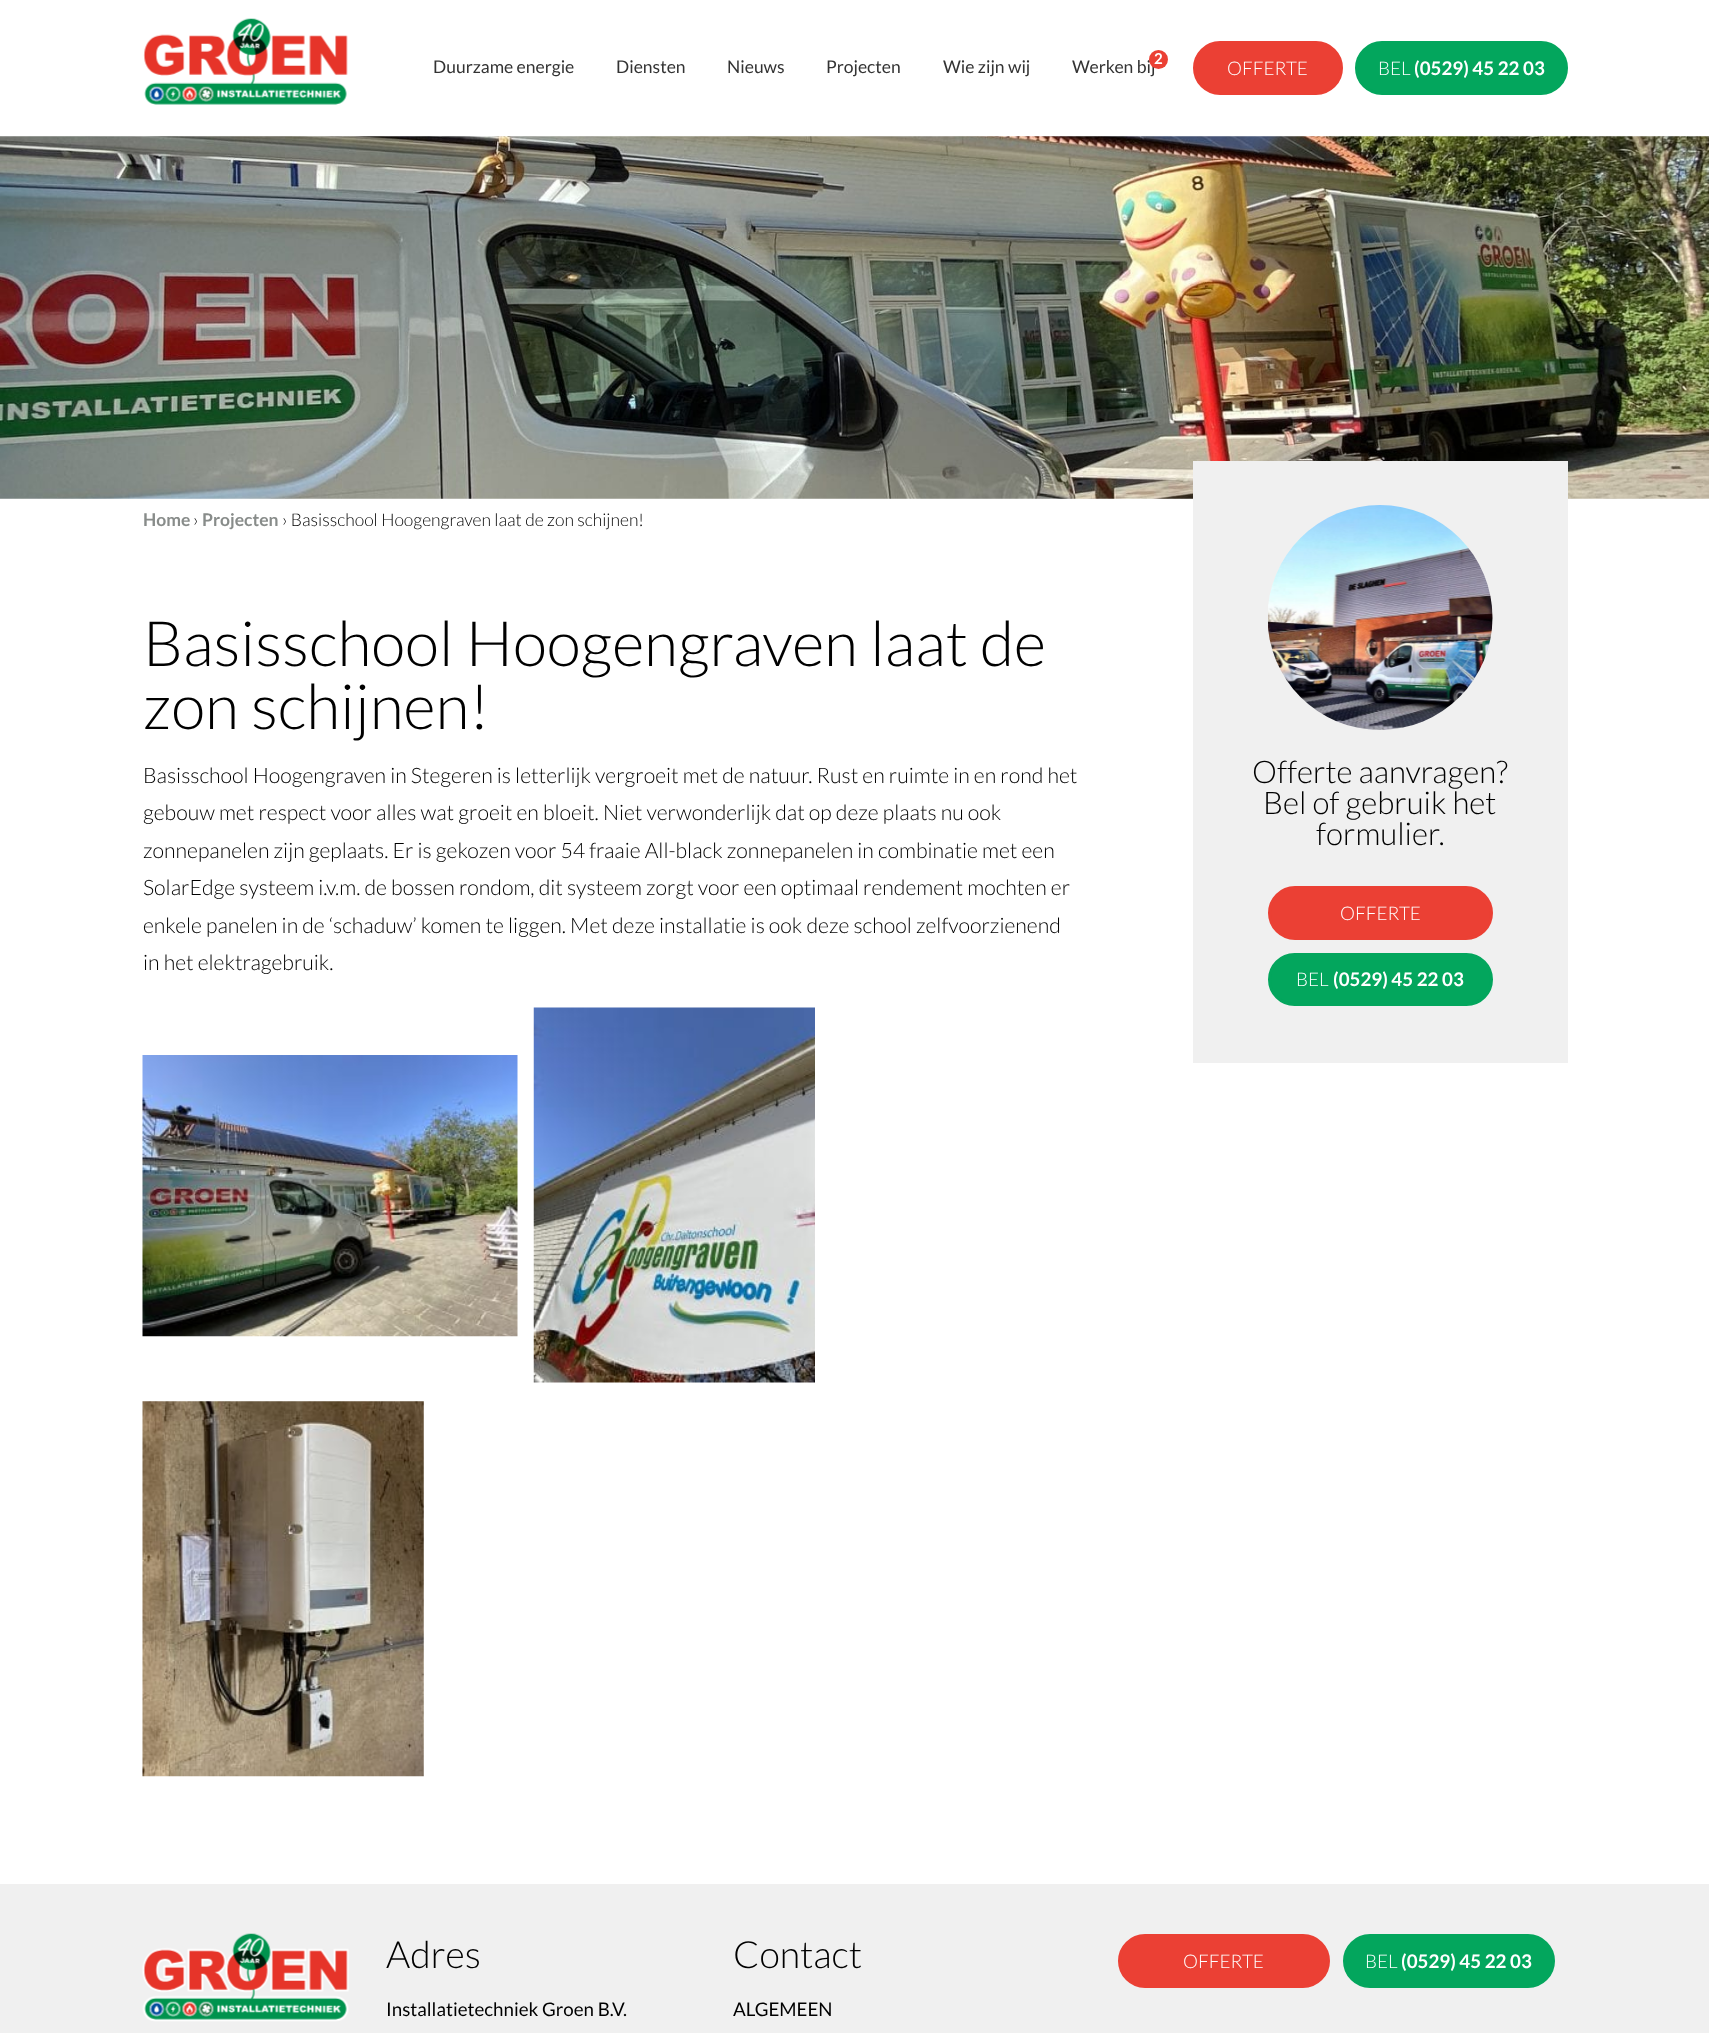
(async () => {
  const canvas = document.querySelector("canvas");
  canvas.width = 1709;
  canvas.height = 2033;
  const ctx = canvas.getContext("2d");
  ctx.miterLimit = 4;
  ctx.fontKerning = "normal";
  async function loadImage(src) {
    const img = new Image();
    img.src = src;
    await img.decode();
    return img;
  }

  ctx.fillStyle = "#ffffff";
  ctx.fillRect(0, 0, 1709, 2033);
  ctx.drawImage(await loadImage("img/1.png"), 143, 18, 205, 87);
  ctx.fillStyle = "#eb4034";
  ctx.beginPath();
  ctx.roundRect(1194.5, 42.5, 147, 51, 25.5);
  ctx.fill();
  ctx.strokeStyle = "#eb4034";
  ctx.lineWidth = 3;
  ctx.stroke();
  ctx.fillStyle = "#03a65d";
  ctx.beginPath();
  ctx.roundRect(1356.5, 42.5, 210, 51, 25.5);
  ctx.fill();
  ctx.strokeStyle = "#03a65d";
  ctx.stroke();
  ctx.drawImage(await loadImage("img/2.png"), 0, 136, 1709, 363);
  ctx.drawImage(await loadImage("img/3.png"), 142, 1055, 376, 282);
  ctx.drawImage(await loadImage("img/4.png"), 533, 1007, 282, 376);
  ctx.drawImage(await loadImage("img/5.png"), 142, 1401, 282, 376);
  ctx.fillStyle = "#f0f0f0";
  ctx.fillRect(1193, 461, 375, 602);
  ctx.drawImage(await loadImage("img/6.png"), 1268, 505, 225, 225);
  ctx.fillStyle = "#eb4034";
  ctx.beginPath();
  ctx.roundRect(1269.5, 887.5, 222, 51, 25.5);
  ctx.fill();
  ctx.strokeStyle = "#eb4034";
  ctx.stroke();
  ctx.fillStyle = "#03a65d";
  ctx.beginPath();
  ctx.roundRect(1269.5, 954.5, 222, 50, 25);
  ctx.fill();
  ctx.strokeStyle = "#03a65d";
  ctx.stroke();
  ctx.fillStyle = "#f0f0f0";
  ctx.fillRect(0, 1884, 1709, 149);
  ctx.drawImage(await loadImage("img/7.png"), 142, 1933, 207, 89);
  ctx.fillStyle = "#eb4034";
  ctx.beginPath();
  ctx.roundRect(1119.5, 1935.5, 209, 51, 25.5);
  ctx.fill();
  ctx.strokeStyle = "#eb4034";
  ctx.stroke();
  ctx.fillStyle = "#03a65d";
  ctx.beginPath();
  ctx.roundRect(1344.5, 1935.5, 209, 51, 25.5);
  ctx.fill();
  ctx.strokeStyle = "#03a65d";
  ctx.stroke();
  ctx.font = "17.5px Lato";
  ctx.fillStyle = "#333333";
  for (const [text, x, y] of [
    ["Duurzame energie", 433, 73],
    ["Diensten", 616, 73],
    ["Nieuws", 727, 73],
    ["Projecten", 826, 73],
    ["Wie zijn wij", 943, 73],
    ["Werken bij", 1072, 73],
  ]) {
    ctx.fillText(text, x, y);
  }
  ctx.fillStyle = "#eb4034";
  ctx.beginPath();
  ctx.arc(1158.5, 59.5, 9.5, 0, Math.PI * 2);
  ctx.fill();
  ctx.font = "bold 15px Lato";
  ctx.fillStyle = "#ffffff";
  ctx.fillText("2", 1154, 64);
  ctx.font = "300 18.75px Lato";
  ctx.fillText("OFFERTE", 1227, 75);
  ctx.fillText("BEL", 1378, 75);
  ctx.font = "bold 18.75px Lato";
  ctx.fillText("(0529) 45 22 03", 1414, 75);
  ctx.font = "bold 17.5px Lato";
  ctx.fillStyle = "#888c8a";
  ctx.fillText("Home", 143, 526);
  ctx.font = "300 17.5px Lato";
  ctx.fillStyle = "#000000";
  ctx.fillText("›", 193, 526);
  ctx.font = "bold 17.5px Lato";
  ctx.fillStyle = "#888c8a";
  ctx.fillText("Projecten", 202, 526);
  ctx.font = "300 17.5px Lato";
  ctx.fillStyle = "#000000";
  ctx.fillText("› Basisschool Hoogengraven laat de zon schijnen!", 282, 526);
  ctx.font = "300 62.5px Lato";
  ctx.fillText("Basisschool Hoogengraven laat de", 143, 666);
  ctx.fillText("zon schijnen!", 143, 729);
  ctx.font = "300 21.25px Lato";
  for (const [text, x, y] of [
    ["Basisschool Hoogengraven in Stegeren is letterlijk vergroeit met de natuur. Rust en ruimte in en rond het", 143, 783],
    ["gebouw met respect voor alles wat groeit en bloeit. Niet verwonderlijk dat op deze plaats nu ook", 143, 820],
    ["zonnepanelen zijn geplaats. Er is gekozen voor 54 fraaie All-black zonnepanelen in combinatie met een", 143, 858],
    ["SolarEdge systeem i.v.m. de bossen rondom, dit systeem zorgt voor een optimaal rendement mochten er", 143, 895],
    ["enkele panelen in de ‘schaduw’ komen te liggen. Met deze installatie is ook deze school zelfvoorzienend", 143, 933],
    ["in het elektragebruik.", 143, 970],
  ]) {
    ctx.fillText(text, x, y);
  }
  ctx.font = "300 31.25px Lato";
  for (const [text, x, y] of [
    ["Offerte aanvragen?", 1252, 783],
    ["Bel of gebruik het", 1263, 814],
    ["formulier.", 1316, 845],
  ]) {
    ctx.fillText(text, x, y);
  }
  ctx.font = "300 18.75px Lato";
  ctx.fillStyle = "#ffffff";
  ctx.fillText("OFFERTE", 1340, 920);
  ctx.fillText("BEL", 1296, 986);
  ctx.font = "bold 18.75px Lato";
  ctx.fillText("(0529) 45 22 03", 1333, 986);
  ctx.font = "300 37.5px Lato";
  ctx.fillStyle = "#000000";
  ctx.fillText("Adres", 386, 1968);
  ctx.font = "18.75px Lato";
  ctx.fillText("Installatietechniek Groen B.V.", 386, 2016);
  ctx.font = "300 37.5px Lato";
  ctx.fillText("Contact", 733, 1968);
  ctx.font = "18.75px Lato";
  ctx.fillText("ALGEMEEN", 733, 2016);
  ctx.font = "300 18.75px Lato";
  ctx.fillStyle = "#ffffff";
  ctx.fillText("OFFERTE", 1183, 1968);
  ctx.fillText("BEL", 1365, 1968);
  ctx.font = "bold 18.75px Lato";
  ctx.fillText("(0529) 45 22 03", 1401, 1968);
})();
